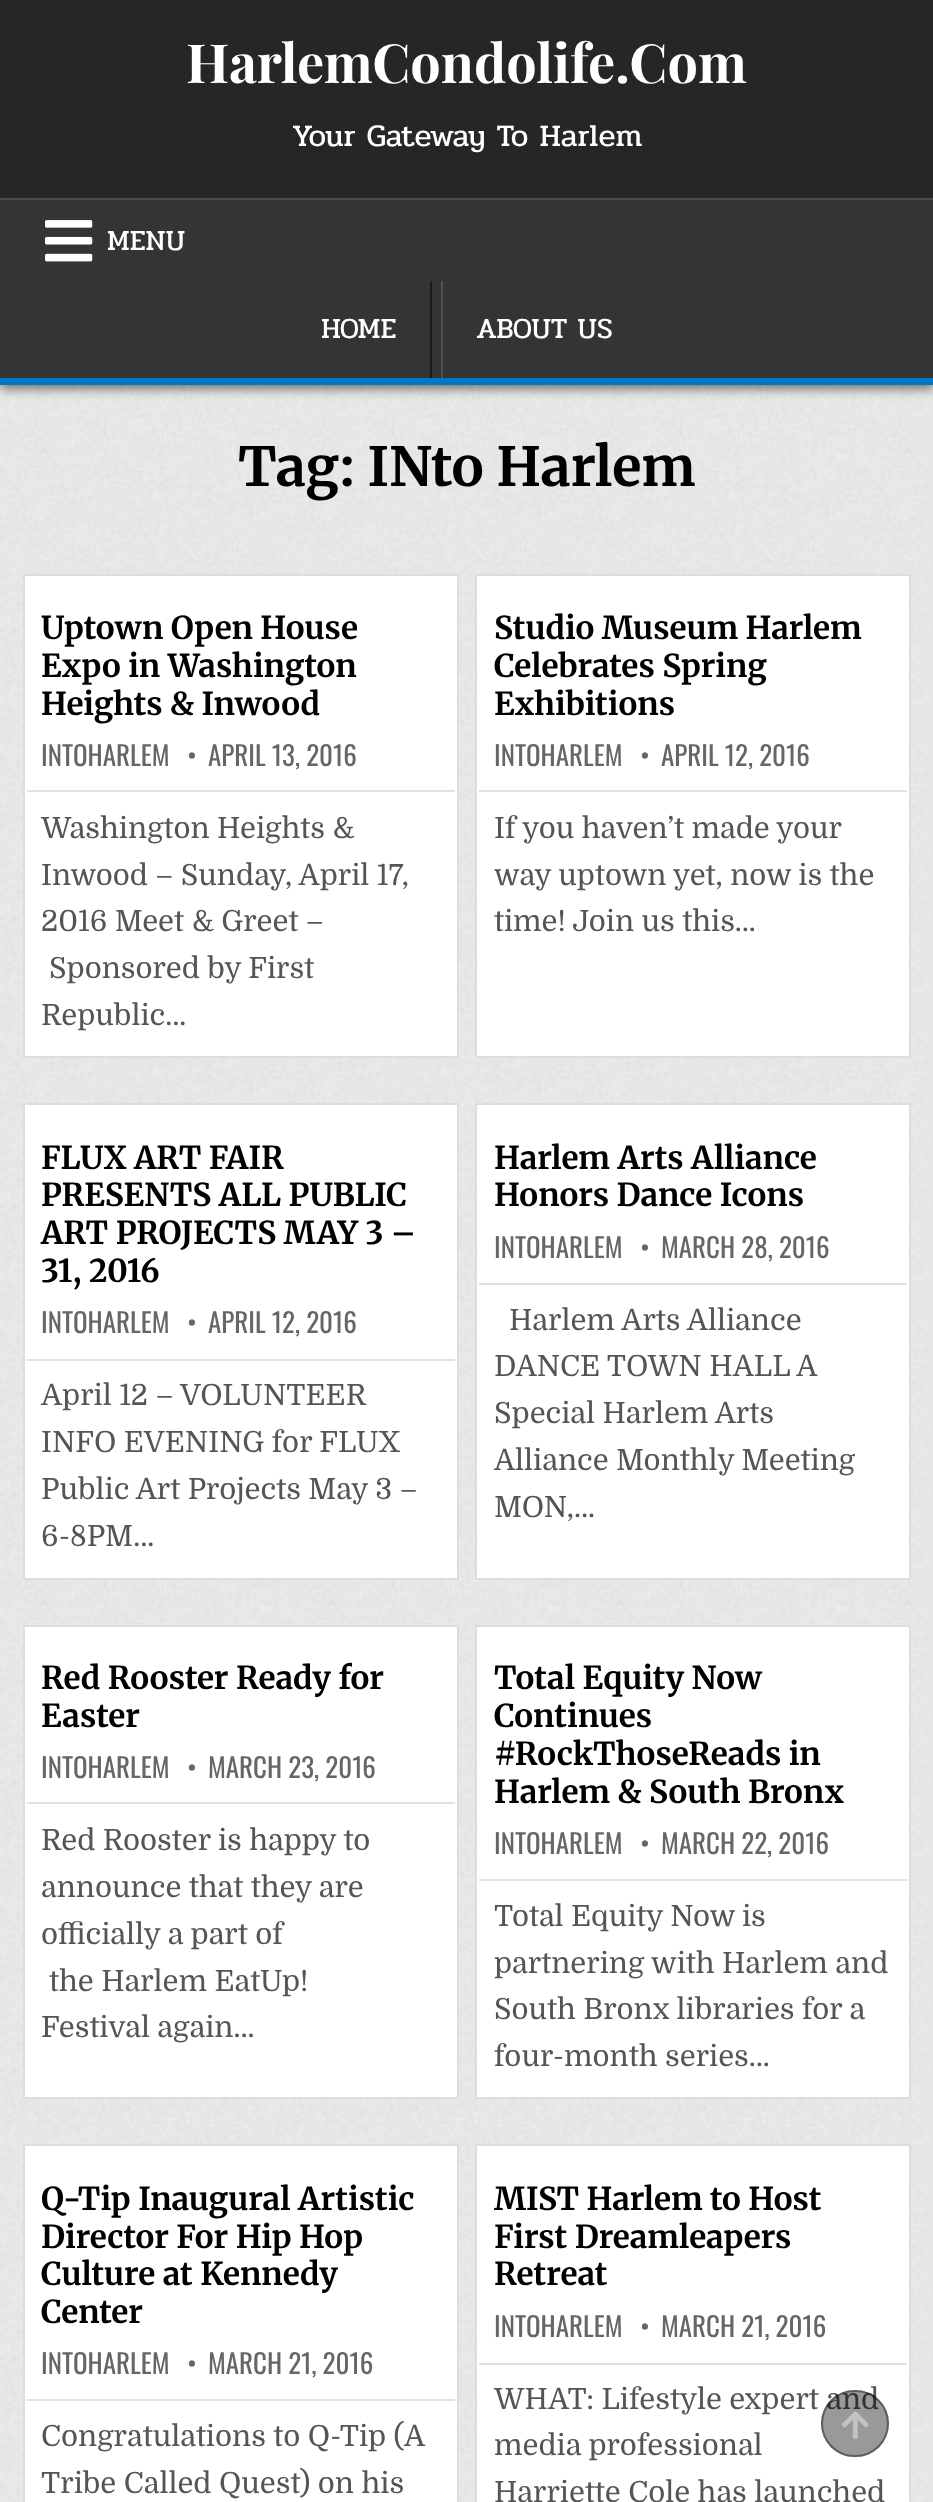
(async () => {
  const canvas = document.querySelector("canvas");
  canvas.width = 933;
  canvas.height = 2502;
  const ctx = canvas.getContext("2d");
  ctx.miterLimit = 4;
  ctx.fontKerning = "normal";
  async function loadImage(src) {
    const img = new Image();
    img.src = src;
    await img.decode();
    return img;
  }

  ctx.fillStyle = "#e6e6e6";
  ctx.fillRect(0, 0, 933, 2502);
  ctx.drawImage(await loadImage("img/1.png"), 0, 385, 931, 2117);
  ctx.fillStyle = "rgba(0, 0, 0, 0.5)";
  ctx.filter = "blur(5.5px)";
  ctx.beginPath();
  ctx.rect(0, 203, 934, 186);
  ctx.fill();
  ctx.filter = "none";
  for (const [x, y, w, h, color] of [
    [0, 0, 933, 198, "#262626"],
    [0, 200, 933, 178, "#353434"],
    [0, 198, 933, 2, "#4c4949"],
    [0, 378, 933, 7, "#0077c0"],
  ]) {
    ctx.fillStyle = color;
    ctx.fillRect(x, y, w, h);
  }
  ctx.drawImage(await loadImage("img/2.png"), 45, 220, 48, 42);
  ctx.fillStyle = "#1b1a1a";
  ctx.fillRect(430, 281, 2, 97);
  ctx.fillStyle = "#544f4f";
  ctx.fillRect(441, 281, 2, 97);
  ctx.fillStyle = "#ffffff";
  ctx.beginPath();
  ctx.rect(24, 575, 434, 482);
  ctx.fill();
  ctx.strokeStyle = "#dddddd";
  ctx.lineWidth = 2;
  ctx.stroke();
  ctx.fillStyle = "#e1e1e1";
  ctx.fillRect(27, 790, 428, 2);
  ctx.fillStyle = "#ffffff";
  ctx.beginPath();
  ctx.rect(476, 575, 434, 482);
  ctx.fill();
  ctx.stroke();
  ctx.fillStyle = "#e1e1e1";
  ctx.fillRect(479, 790, 428, 2);
  ctx.fillStyle = "#ffffff";
  ctx.beginPath();
  ctx.rect(24, 1104, 434, 475);
  ctx.fill();
  ctx.stroke();
  ctx.fillStyle = "#e1e1e1";
  ctx.fillRect(27, 1359, 428, 2);
  ctx.fillStyle = "#ffffff";
  ctx.beginPath();
  ctx.rect(476, 1104, 434, 475);
  ctx.fill();
  ctx.stroke();
  ctx.fillStyle = "#e1e1e1";
  ctx.fillRect(479, 1283, 428, 2);
  ctx.fillStyle = "#ffffff";
  ctx.beginPath();
  ctx.rect(24, 1626, 434, 472);
  ctx.fill();
  ctx.stroke();
  ctx.fillStyle = "#e1e1e1";
  ctx.fillRect(27, 1802, 428, 2);
  ctx.fillStyle = "#ffffff";
  ctx.beginPath();
  ctx.rect(476, 1626, 434, 472);
  ctx.fill();
  ctx.stroke();
  ctx.fillStyle = "#e1e1e1";
  ctx.fillRect(479, 1879, 428, 2);
  ctx.fillStyle = "#ffffff";
  ctx.beginPath();
  ctx.rect(24, 2145, 434, 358);
  ctx.fill();
  ctx.stroke();
  ctx.fillStyle = "#e1e1e1";
  ctx.fillRect(27, 2399, 428, 2);
  ctx.fillStyle = "#ffffff";
  ctx.beginPath();
  ctx.rect(476, 2145, 434, 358);
  ctx.fill();
  ctx.stroke();
  ctx.fillStyle = "#e1e1e1";
  ctx.fillRect(479, 2363, 428, 2);
  ctx.font = "bold 54px Playfair Display";
  ctx.fillStyle = "#ffffff";
  ctx.fillText("HarlemCondolife.Com", 186, 83);
  ctx.font = "31.5px Pridi";
  ctx.fillText("Your Gateway To Harlem", 292, 146);
  ctx.font = "29.25px Pridi";
  for (const [text, x, y] of [
    ["MENU", 107, 250],
    ["HOME", 321, 338],
    ["ABOUT US", 476, 338],
  ]) {
    ctx.fillText(text, x, y);
  }
  ctx.font = "bold 54px Merriweather";
  ctx.fillStyle = "#000000";
  ctx.fillText("Tag: INto Harlem", 238, 486);
  ctx.font = "bold 31.5px Merriweather";
  for (const [text, x, y] of [
    ["Uptown Open House", 41, 639],
    ["Expo in Washington", 41, 677],
    ["Heights & Inwood", 41, 715],
  ]) {
    ctx.fillText(text, x, y);
  }
  ctx.font = "27px Oswald";
  ctx.fillStyle = "#666666";
  for (const [text, x, y] of [
    ["INTOHARLEM", 41, 766],
    ["•", 187, 766],
    ["APRIL 13, 2016", 208, 766],
  ]) {
    ctx.fillText(text, x, y);
  }
  ctx.font = "29.25px Domine";
  ctx.fillStyle = "#555555";
  for (const [text, x, y] of [
    ["Washington Heights &", 41, 838],
    ["Inwood – Sunday, April 17,", 41, 885],
    ["2016 Meet & Greet –", 41, 931],
    ["Sponsored by First", 49, 978],
    ["Republic…", 41, 1025],
  ]) {
    ctx.fillText(text, x, y);
  }
  ctx.font = "bold 31.5px Merriweather";
  ctx.fillStyle = "#000000";
  for (const [text, x, y] of [
    ["Studio Museum Harlem", 494, 639],
    ["Celebrates Spring", 494, 677],
    ["Exhibitions", 494, 715],
  ]) {
    ctx.fillText(text, x, y);
  }
  ctx.font = "27px Oswald";
  ctx.fillStyle = "#666666";
  for (const [text, x, y] of [
    ["INTOHARLEM", 494, 766],
    ["•", 640, 766],
    ["APRIL 12, 2016", 661, 766],
  ]) {
    ctx.fillText(text, x, y);
  }
  ctx.font = "29.25px Domine";
  ctx.fillStyle = "#555555";
  for (const [text, x, y] of [
    ["If you haven’t made your", 494, 838],
    ["way uptown yet, now is the", 494, 885],
    ["time! Join us this…", 494, 931],
  ]) {
    ctx.fillText(text, x, y);
  }
  ctx.font = "bold 31.5px Merriweather";
  ctx.fillStyle = "#000000";
  for (const [text, x, y] of [
    ["FLUX ART FAIR", 41, 1169],
    ["PRESENTS ALL PUBLIC", 41, 1206],
    ["ART PROJECTS MAY 3 –", 41, 1244],
    ["31, 2016", 41, 1282],
  ]) {
    ctx.fillText(text, x, y);
  }
  ctx.font = "27px Oswald";
  ctx.fillStyle = "#666666";
  for (const [text, x, y] of [
    ["INTOHARLEM", 41, 1333],
    ["•", 187, 1333],
    ["APRIL 12, 2016", 208, 1333],
  ]) {
    ctx.fillText(text, x, y);
  }
  ctx.font = "29.25px Domine";
  ctx.fillStyle = "#555555";
  for (const [text, x, y] of [
    ["April 12 – VOLUNTEER", 41, 1405],
    ["INFO EVENING for FLUX", 41, 1452],
    ["Public Art Projects May 3 –", 41, 1499],
    ["6-8PM…", 41, 1546],
  ]) {
    ctx.fillText(text, x, y);
  }
  ctx.font = "bold 31.5px Merriweather";
  ctx.fillStyle = "#000000";
  ctx.fillText("Harlem Arts Alliance", 494, 1169);
  ctx.fillText("Honors Dance Icons", 494, 1206);
  ctx.font = "27px Oswald";
  ctx.fillStyle = "#666666";
  for (const [text, x, y] of [
    ["INTOHARLEM", 494, 1258],
    ["•", 640, 1258],
    ["MARCH 28, 2016", 661, 1258],
  ]) {
    ctx.fillText(text, x, y);
  }
  ctx.font = "29.25px Domine";
  ctx.fillStyle = "#555555";
  for (const [text, x, y] of [
    ["Harlem Arts Alliance", 509, 1330],
    ["DANCE TOWN HALL A", 494, 1376],
    ["Special Harlem Arts", 494, 1423],
    ["Alliance Monthly Meeting", 494, 1470],
    ["MON,…", 494, 1517],
  ]) {
    ctx.fillText(text, x, y);
  }
  ctx.font = "bold 31.5px Merriweather";
  ctx.fillStyle = "#000000";
  ctx.fillText("Red Rooster Ready for", 41, 1689);
  ctx.fillText("Easter", 41, 1727);
  ctx.font = "27px Oswald";
  ctx.fillStyle = "#666666";
  for (const [text, x, y] of [
    ["INTOHARLEM", 41, 1778],
    ["•", 187, 1778],
    ["MARCH 23, 2016", 208, 1778],
  ]) {
    ctx.fillText(text, x, y);
  }
  ctx.font = "29.25px Domine";
  ctx.fillStyle = "#555555";
  for (const [text, x, y] of [
    ["Red Rooster is happy to", 41, 1850],
    ["announce that they are", 41, 1897],
    ["officially a part of", 41, 1944],
    ["the Harlem EatUp!", 49, 1991],
    ["Festival again…", 41, 2037],
  ]) {
    ctx.fillText(text, x, y);
  }
  ctx.font = "bold 31.5px Merriweather";
  ctx.fillStyle = "#000000";
  for (const [text, x, y] of [
    ["Total Equity Now", 494, 1689],
    ["Continues", 494, 1727],
    ["#RockThoseReads in", 494, 1765],
    ["Harlem & South Bronx", 494, 1803],
  ]) {
    ctx.fillText(text, x, y);
  }
  ctx.font = "27px Oswald";
  ctx.fillStyle = "#666666";
  for (const [text, x, y] of [
    ["INTOHARLEM", 494, 1854],
    ["•", 640, 1854],
    ["MARCH 22, 2016", 661, 1854],
  ]) {
    ctx.fillText(text, x, y);
  }
  ctx.font = "29.25px Domine";
  ctx.fillStyle = "#555555";
  for (const [text, x, y] of [
    ["Total Equity Now is", 494, 1926],
    ["partnering with Harlem and", 494, 1973],
    ["South Bronx libraries for a", 494, 2019],
    ["four-month series…", 494, 2066],
  ]) {
    ctx.fillText(text, x, y);
  }
  ctx.font = "bold 31.5px Merriweather";
  ctx.fillStyle = "#000000";
  for (const [text, x, y] of [
    ["Q-Tip Inaugural Artistic", 41, 2210],
    ["Director For Hip Hop", 41, 2248],
    ["Culture at Kennedy", 41, 2285],
    ["Center", 41, 2323],
  ]) {
    ctx.fillText(text, x, y);
  }
  ctx.font = "27px Oswald";
  ctx.fillStyle = "#666666";
  for (const [text, x, y] of [
    ["INTOHARLEM", 41, 2374],
    ["•", 187, 2374],
    ["MARCH 21, 2016", 208, 2374],
  ]) {
    ctx.fillText(text, x, y);
  }
  ctx.font = "29.25px Domine";
  ctx.fillStyle = "#555555";
  ctx.fillText("Congratulations to Q-Tip (A", 41, 2446);
  ctx.fillText("Tribe Called Quest) on his", 41, 2493);
  ctx.font = "bold 31.5px Merriweather";
  ctx.fillStyle = "#000000";
  for (const [text, x, y] of [
    ["MIST Harlem to Host", 494, 2210],
    ["First Dreamleapers", 494, 2248],
    ["Retreat", 494, 2285],
  ]) {
    ctx.fillText(text, x, y);
  }
  ctx.font = "27px Oswald";
  ctx.fillStyle = "#666666";
  for (const [text, x, y] of [
    ["INTOHARLEM", 494, 2337],
    ["•", 640, 2337],
    ["MARCH 21, 2016", 661, 2337],
  ]) {
    ctx.fillText(text, x, y);
  }
  ctx.font = "29.25px Domine";
  ctx.fillStyle = "#555555";
  for (const [text, x, y] of [
    ["WHAT: Lifestyle expert and", 494, 2409],
    ["media professional", 494, 2455],
    ["Harriette Cole has launched", 494, 2502],
  ]) {
    ctx.fillText(text, x, y);
  }
  ctx.fillStyle = "rgba(0, 0, 0, 0.4)";
  ctx.beginPath();
  ctx.roundRect(821, 2390, 68, 67, 33.5);
  ctx.fill();
  ctx.beginPath();
  ctx.roundRect(822, 2391, 66, 65, 32.5);
  ctx.strokeStyle = "rgba(0, 0, 0, 0.4)";
  ctx.stroke();
  ctx.drawImage(await loadImage("img/3.png"), 842, 2411, 27, 28);
})();
